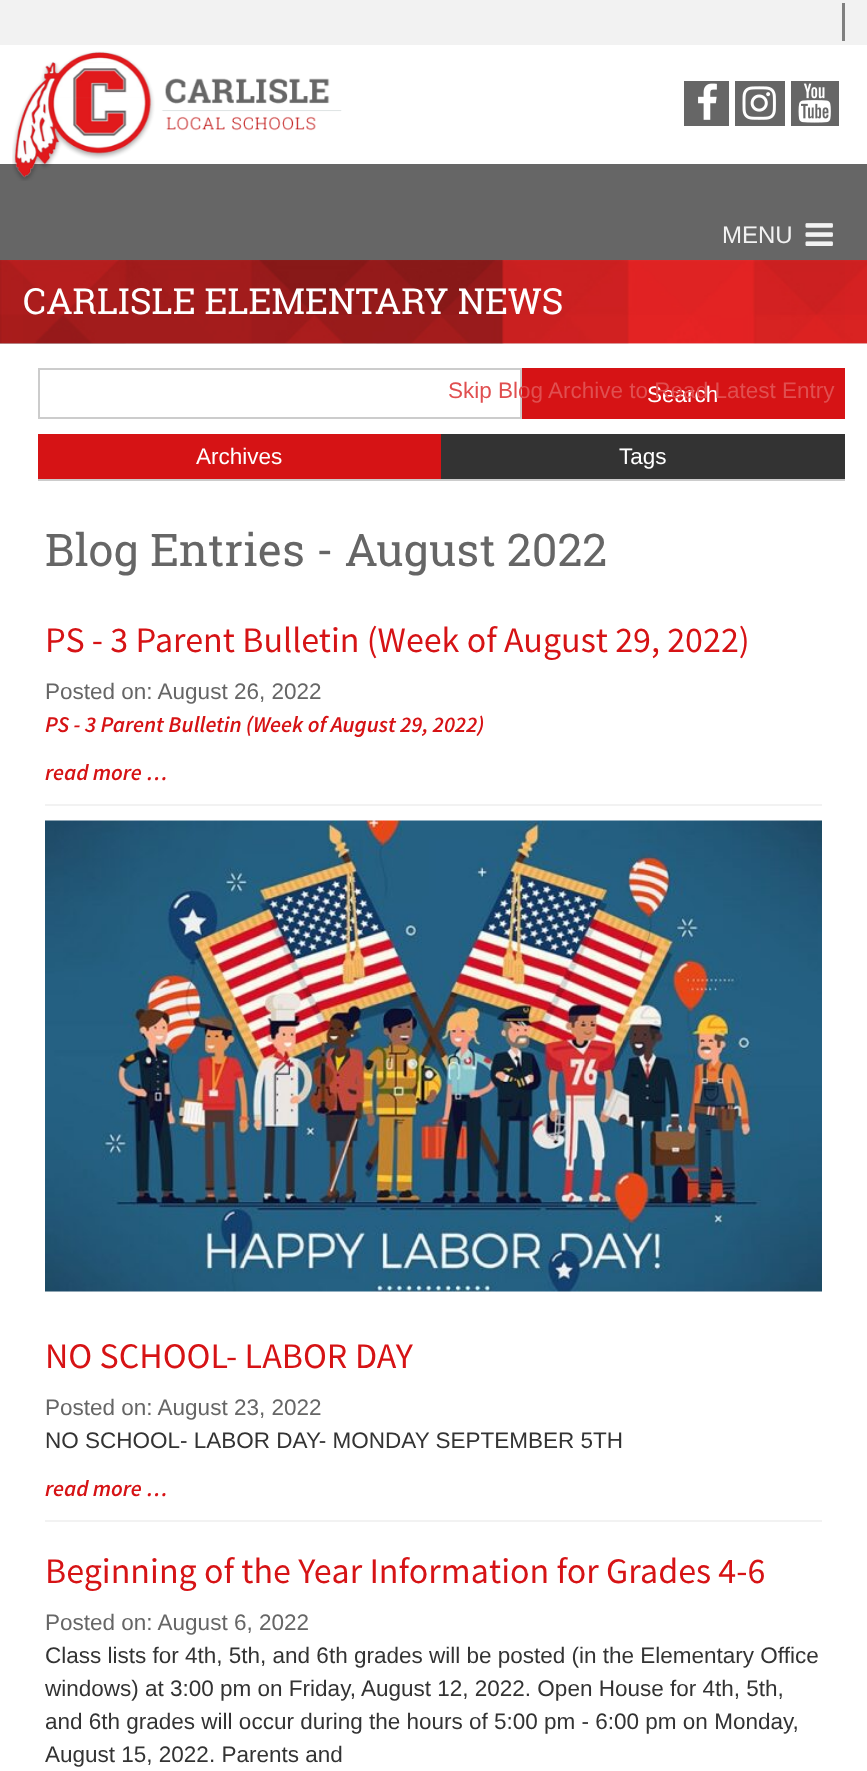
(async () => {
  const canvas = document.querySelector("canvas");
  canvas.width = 867;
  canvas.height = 1771;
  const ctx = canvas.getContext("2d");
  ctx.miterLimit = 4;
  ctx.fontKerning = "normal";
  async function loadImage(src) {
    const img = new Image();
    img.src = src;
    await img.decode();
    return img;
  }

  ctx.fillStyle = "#f2f2f2";
  ctx.fillRect(0, 0, 867, 1771);
  for (const [x, y, w, h, color] of [
    [0, 164, 867, 96, "#666666"],
    [842, 3, 3, 38, "#808080"],
    [0, 45, 867, 119, "#ffffff"],
  ]) {
    ctx.fillStyle = color;
    ctx.fillRect(x, y, w, h);
  }
  ctx.drawImage(await loadImage("img/1.png"), 12, 51, 330, 130);
  ctx.fillStyle = "#666666";
  ctx.fillRect(684, 81, 45, 45);
  ctx.drawImage(await loadImage("img/2.png"), 698, 83, 19, 37);
  ctx.fillRect(735, 81, 50, 45);
  ctx.drawImage(await loadImage("img/3.png"), 742, 86, 34, 34);
  ctx.fillRect(791, 81, 48, 45);
  ctx.drawImage(await loadImage("img/4.png"), 798, 83, 33, 40);
  ctx.drawImage(await loadImage("img/5.png"), 805, 223, 28, 23);
  ctx.drawImage(await loadImage("img/6.png"), 0, 343, 867, 1);
  ctx.drawImage(await loadImage("img/7.png"), 0, 260, 867, 84);
  ctx.drawImage(await loadImage("img/8.png"), 0, 343, 867, 1);
  ctx.fillStyle = "#ffffff";
  ctx.fillRect(0, 344, 867, 1427);
  ctx.strokeStyle = "#cccccc";
  ctx.lineWidth = 2;
  ctx.strokeRect(39, 369, 482, 49);
  for (const [x, y, w, h, color] of [
    [522, 368, 323, 51, "#d61315"],
    [38, 434, 403, 45, "#d61315"],
    [441, 434, 404, 45, "#333333"],
    [38, 479, 807, 2, "#cccccc"],
    [45, 804, 777, 2, "#f2f2f2"],
    [45, 1520, 777, 2, "#f2f2f2"],
  ]) {
    ctx.fillStyle = color;
    ctx.fillRect(x, y, w, h);
  }
  ctx.drawImage(await loadImage("img/9.png"), 45, 820, 777, 472);
  ctx.font = "24px Liberation Sans";
  ctx.fillText("MENU", 722, 243);
  ctx.font = "36px Roboto Slab";
  ctx.fillStyle = "#ffffff";
  ctx.fillText("CARLISLE ELEMENTARY NEWS", 23, 314);
  ctx.font = "22.5px Liberation Sans";
  ctx.fillText("Search", 647, 402);
  ctx.fillStyle = "#e04f50";
  ctx.fillText("Skip Blog Archive to Read Latest Entry", 448, 398);
  ctx.fillStyle = "#ffffff";
  ctx.fillText("Archives", 196, 464);
  ctx.fillText("Tags", 619, 464);
  ctx.font = "45px Roboto Slab";
  ctx.fillStyle = "#666666";
  ctx.fillText("Blog Entries - August 2022", 45, 566);
  ctx.font = "36px Source Sans Pro";
  ctx.fillStyle = "#d61315";
  ctx.fillText("PS - 3 Parent Bulletin (Week of August 29, 2022)", 45, 652);
  ctx.font = "22.5px Liberation Sans";
  ctx.fillStyle = "#666666";
  ctx.fillText("Posted on: August 26, 2022", 45, 699);
  ctx.font = "italic 600 22.5px Source Sans Pro";
  ctx.fillStyle = "#d61315";
  ctx.fillText("PS - 3 Parent Bulletin (Week of August 29, 2022)", 45, 732);
  ctx.fillText("read more …", 45, 780);
  ctx.font = "36px Source Sans Pro";
  ctx.fillText("NO SCHOOL- LABOR DAY", 45, 1368);
  ctx.font = "22.5px Liberation Sans";
  ctx.fillStyle = "#666666";
  ctx.fillText("Posted on: August 23, 2022", 45, 1415);
  ctx.fillStyle = "#333333";
  ctx.fillText("NO SCHOOL- LABOR DAY- MONDAY SEPTEMBER 5TH", 45, 1448);
  ctx.font = "italic 600 22.5px Source Sans Pro";
  ctx.fillStyle = "#d61315";
  ctx.fillText("read more …", 45, 1496);
  ctx.font = "36px Source Sans Pro";
  ctx.fillText("Beginning of the Year Information for Grades 4-6", 45, 1583);
  ctx.font = "22.5px Liberation Sans";
  ctx.fillStyle = "#666666";
  ctx.fillText("Posted on: August 6, 2022", 45, 1630);
  ctx.fillStyle = "#333333";
  for (const [text, x, y] of [
    ["Class lists for 4th, 5th, and 6th grades will be posted (in the Elementary Office", 45, 1663],
    ["windows) at 3:00 pm on Friday, August 12, 2022. Open House for 4th, 5th,", 45, 1696],
    ["and 6th grades will occur during the hours of 5:00 pm - 6:00 pm on Monday,", 45, 1729],
    ["August 15, 2022. Parents and", 45, 1762],
  ]) {
    ctx.fillText(text, x, y);
  }
})();
